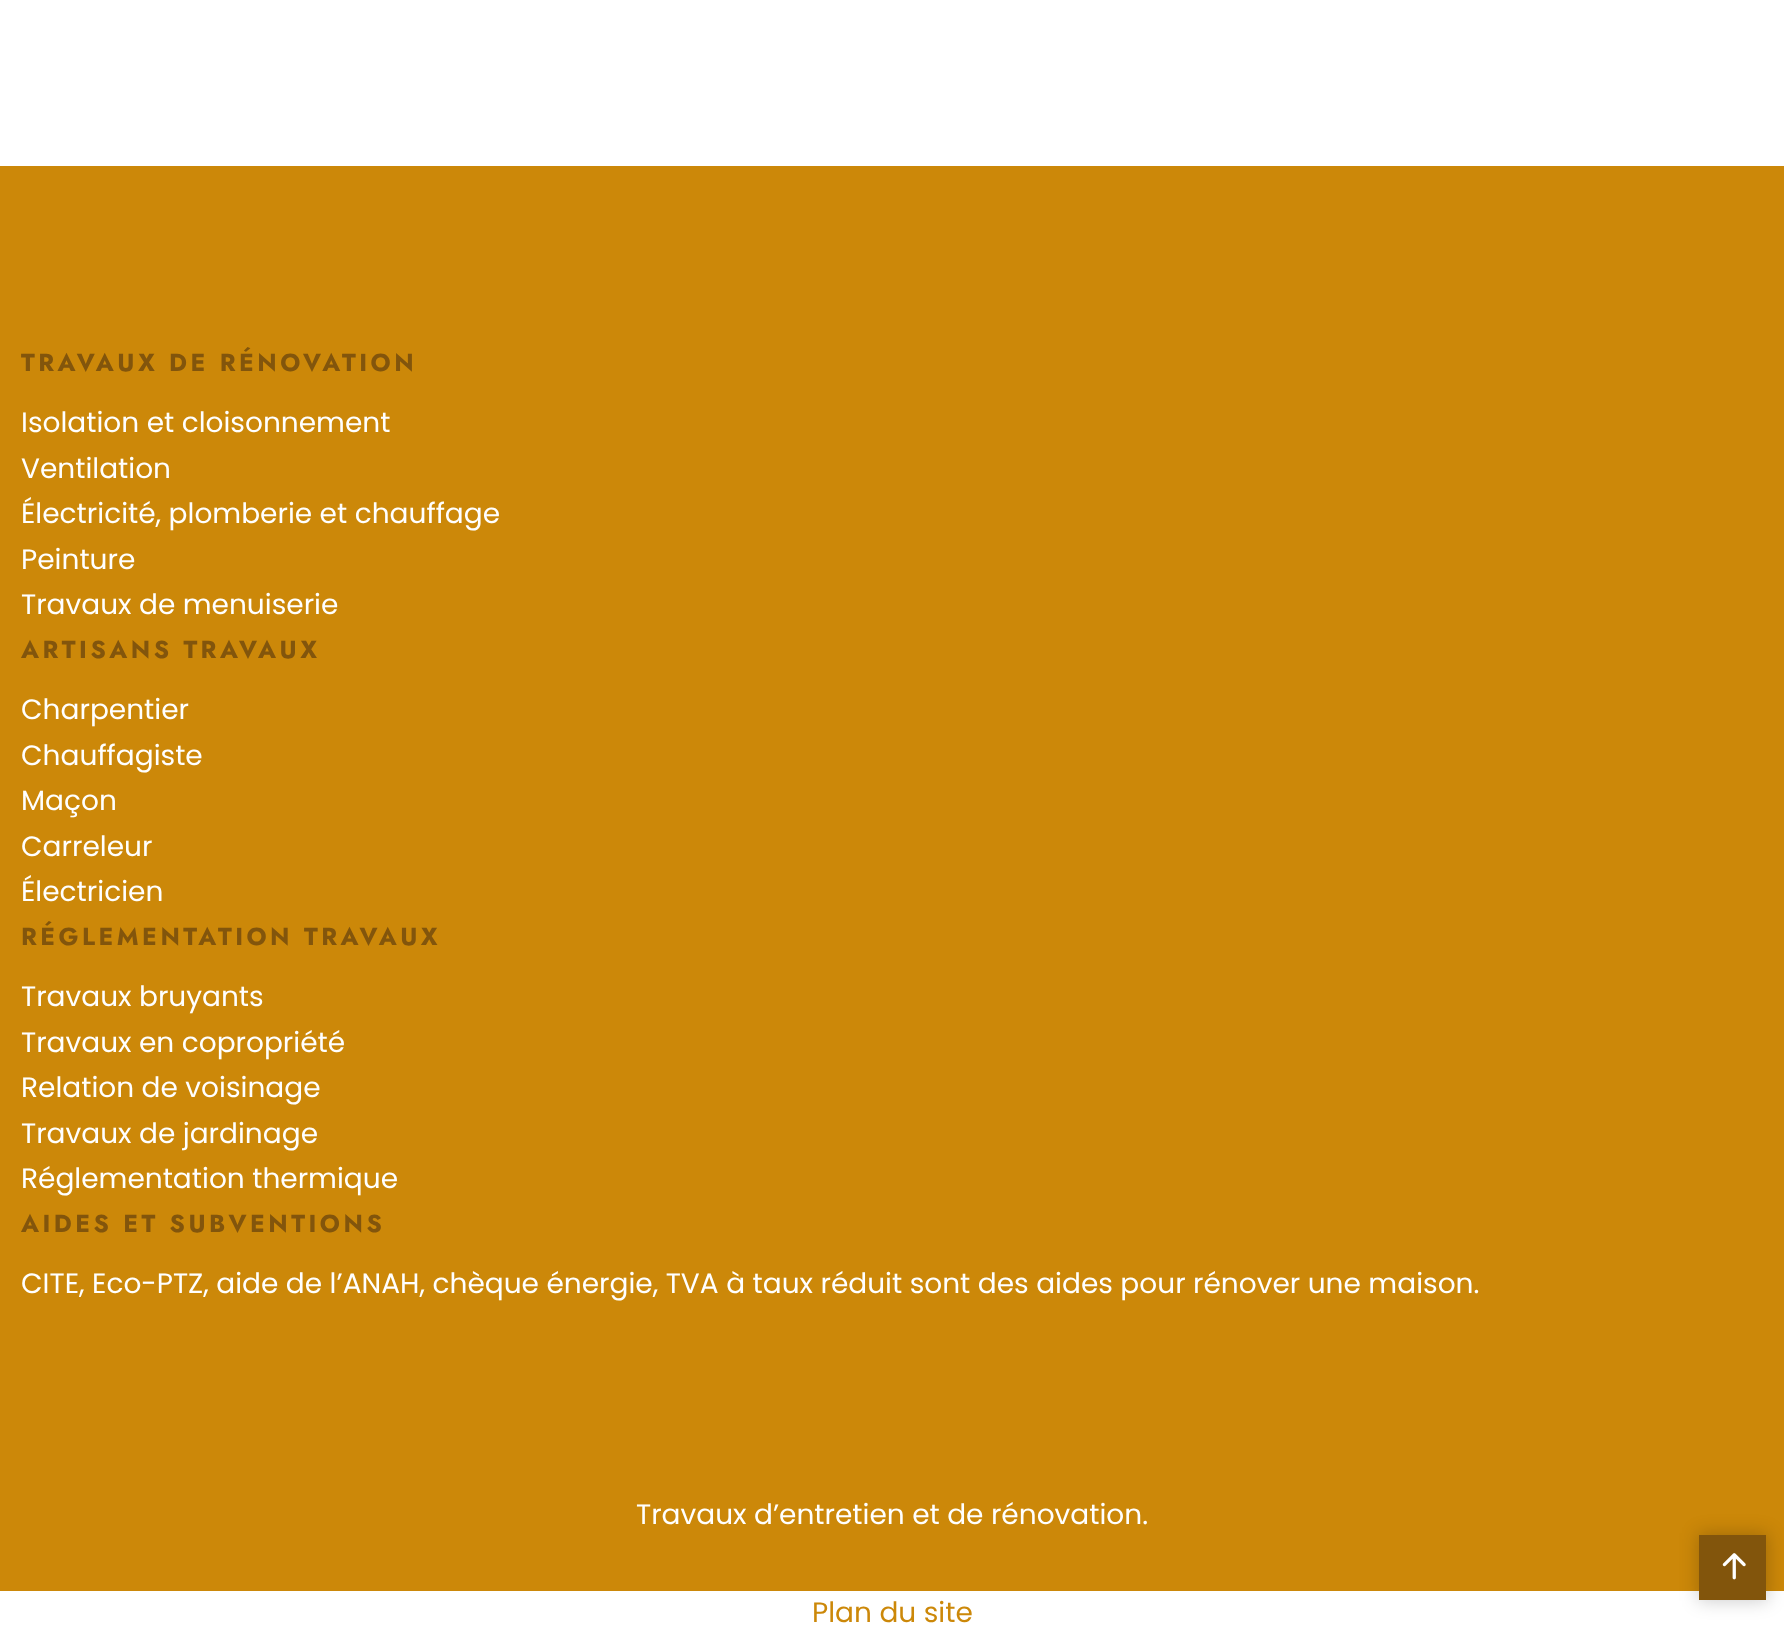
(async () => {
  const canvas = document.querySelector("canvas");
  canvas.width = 1784;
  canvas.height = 1635;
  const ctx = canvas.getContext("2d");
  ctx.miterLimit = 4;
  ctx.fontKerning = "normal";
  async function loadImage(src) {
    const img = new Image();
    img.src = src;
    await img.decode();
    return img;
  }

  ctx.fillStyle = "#ffffff";
  ctx.fillRect(0, 0, 1784, 1635);
  ctx.fillStyle = "#cc8809";
  ctx.fillRect(0, 166, 1784, 1425);
  ctx.fillStyle = "rgba(0, 0, 0, 0.2)";
  ctx.filter = "blur(9px)";
  ctx.beginPath();
  ctx.rect(1698, 1533, 70, 68);
  ctx.fill();
  ctx.filter = "none";
  ctx.fillStyle = "#82550c";
  ctx.fillRect(1699, 1535, 67, 65);
  ctx.drawImage(await loadImage("img/1.png"), 1722, 1553, 24, 27);
  ctx.letterSpacing = "3.5px";
  ctx.font = "bold 24.5px Jost";
  ctx.fillText("TRAVAUX DE RÉNOVATION", 21, 371);
  ctx.letterSpacing = "0px";
  ctx.font = "28px Poppins";
  ctx.fillStyle = "#ffffff";
  for (const [text, x, y] of [
    ["Isolation et cloisonnement", 21, 432],
    ["Ventilation", 21, 478],
    ["Électricité, plomberie et chauffage", 21, 523],
    ["Peinture", 21, 569],
    ["Travaux de menuiserie", 21, 614],
  ]) {
    ctx.fillText(text, x, y);
  }
  ctx.letterSpacing = "3.5px";
  ctx.font = "bold 24.5px Jost";
  ctx.fillStyle = "#82550c";
  ctx.fillText("ARTISANS TRAVAUX", 21, 658);
  ctx.letterSpacing = "0px";
  ctx.font = "28px Poppins";
  ctx.fillStyle = "#ffffff";
  for (const [text, x, y] of [
    ["Charpentier", 21, 719],
    ["Chauffagiste", 21, 765],
    ["Maçon", 21, 810],
    ["Carreleur", 21, 856],
    ["Électricien", 21, 901],
  ]) {
    ctx.fillText(text, x, y);
  }
  ctx.letterSpacing = "3.5px";
  ctx.font = "bold 24.5px Jost";
  ctx.fillStyle = "#82550c";
  ctx.fillText("RÉGLEMENTATION TRAVAUX", 21, 945);
  ctx.letterSpacing = "0px";
  ctx.font = "28px Poppins";
  ctx.fillStyle = "#ffffff";
  for (const [text, x, y] of [
    ["Travaux bruyants", 21, 1006],
    ["Travaux en copropriété", 21, 1052],
    ["Relation de voisinage", 21, 1097],
    ["Travaux de jardinage", 21, 1143],
    ["Réglementation thermique", 21, 1188],
  ]) {
    ctx.fillText(text, x, y);
  }
  ctx.letterSpacing = "3.5px";
  ctx.font = "bold 24.5px Jost";
  ctx.fillStyle = "#82550c";
  ctx.fillText("AIDES ET SUBVENTIONS", 21, 1232);
  ctx.letterSpacing = "0px";
  ctx.font = "28px Poppins";
  ctx.fillStyle = "#ffffff";
  ctx.fillText("CITE, Eco-PTZ, aide de l’ANAH, chèque énergie, TVA à taux réduit sont des aides pour rénover une maison.", 21, 1293);
  ctx.fillText("Travaux d’entretien et de rénovation.", 636, 1524);
  ctx.fillStyle = "#cc8809";
  ctx.fillText("Plan du site", 812, 1622);
})();
